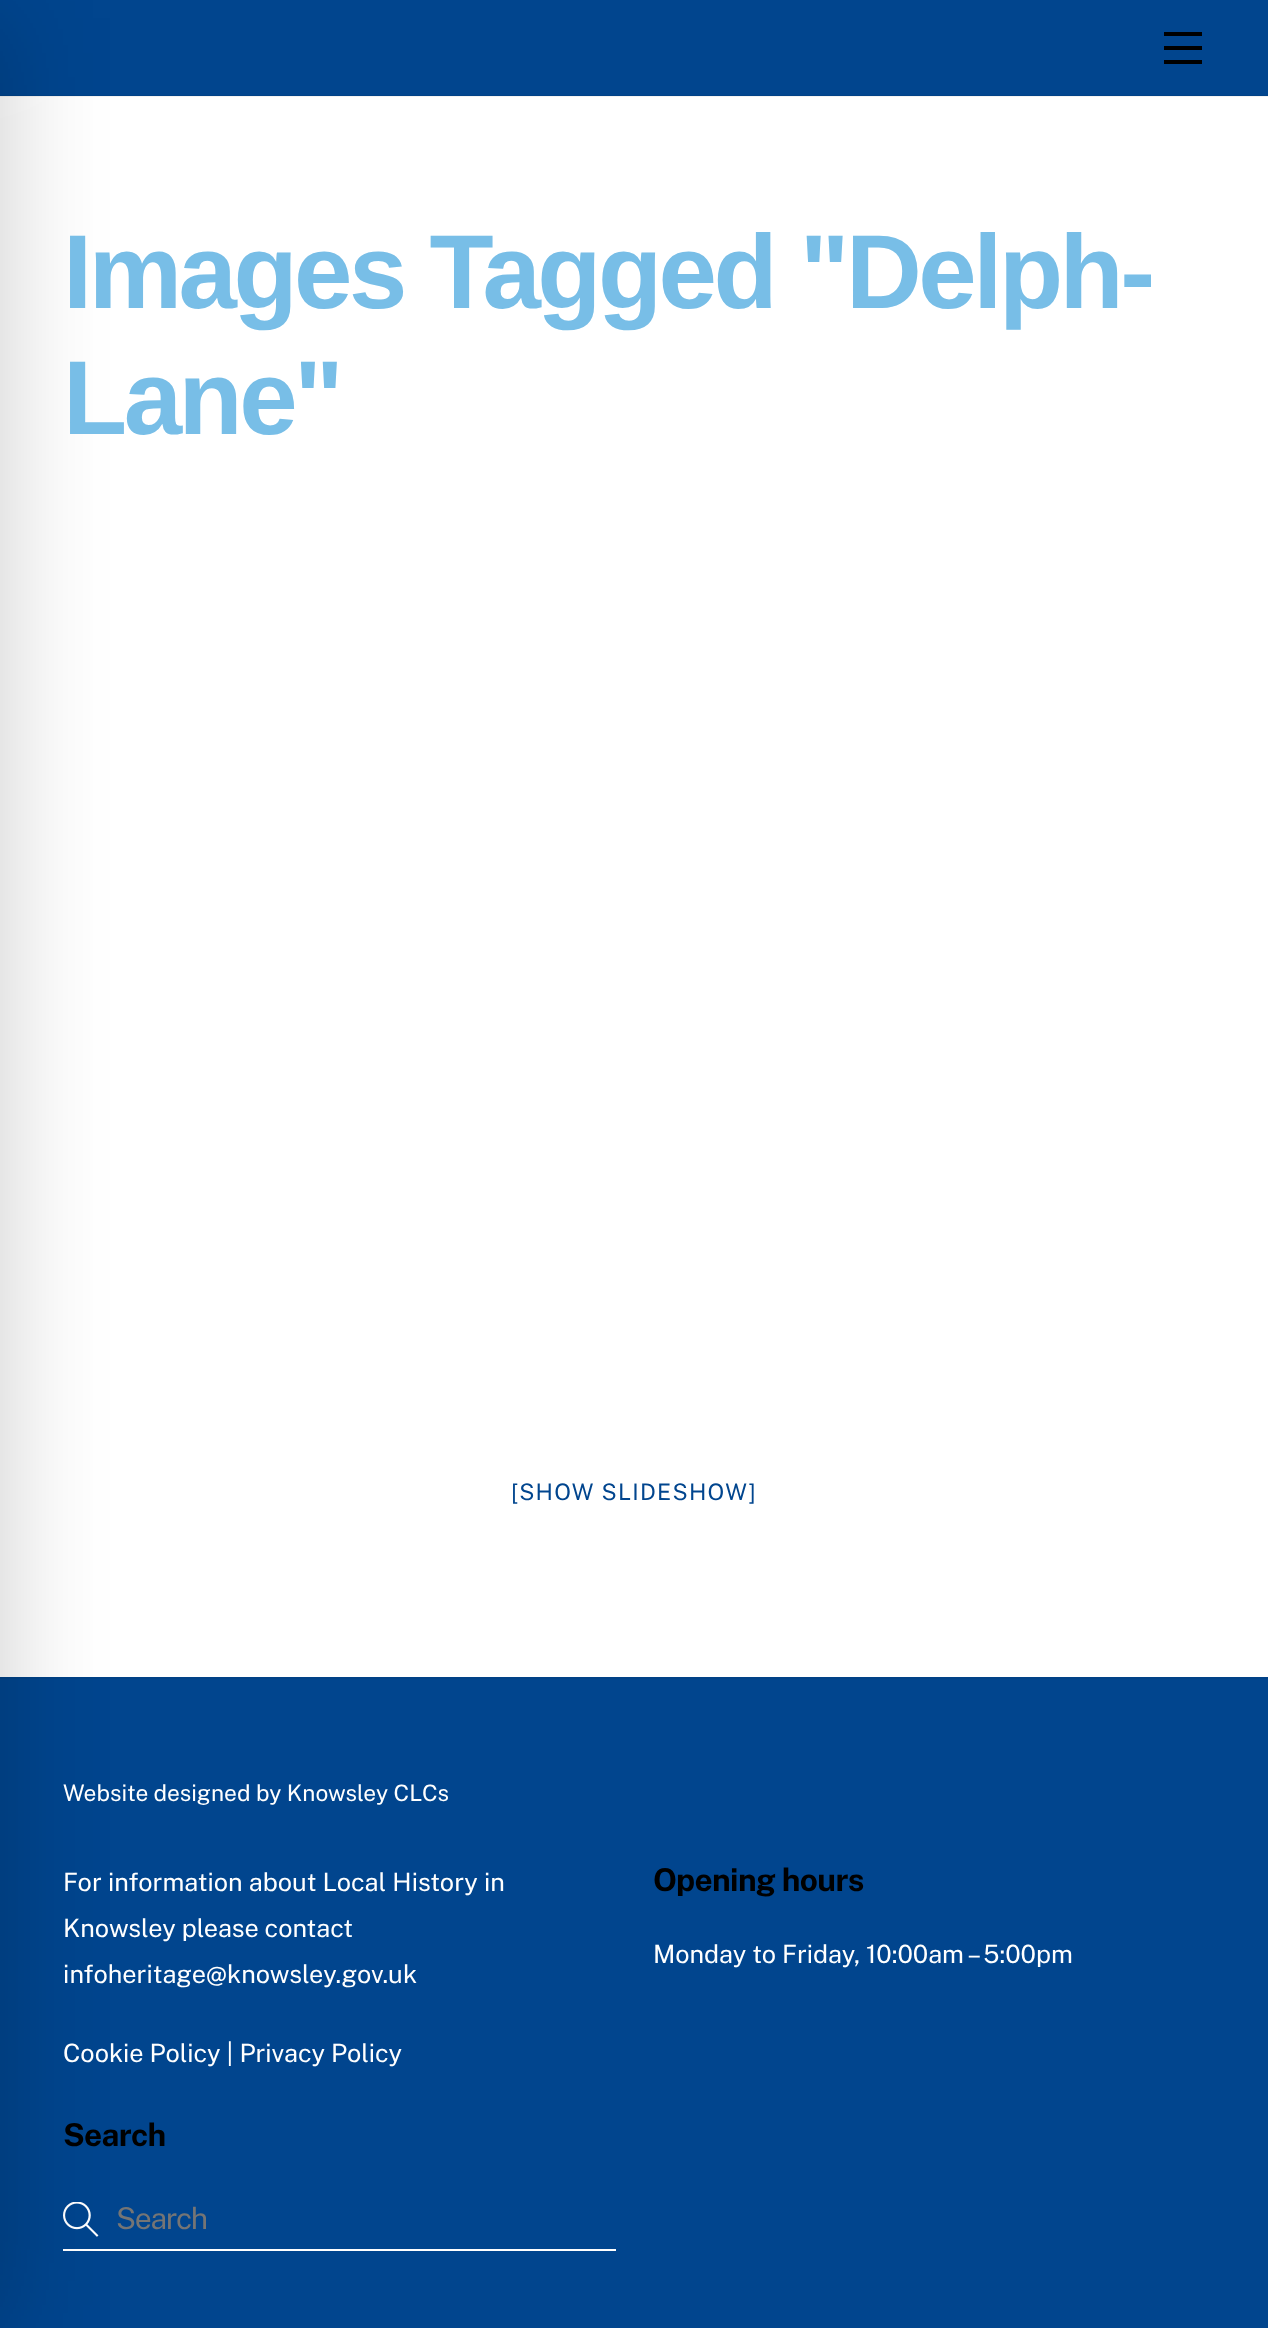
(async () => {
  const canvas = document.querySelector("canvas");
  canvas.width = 1268;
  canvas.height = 2328;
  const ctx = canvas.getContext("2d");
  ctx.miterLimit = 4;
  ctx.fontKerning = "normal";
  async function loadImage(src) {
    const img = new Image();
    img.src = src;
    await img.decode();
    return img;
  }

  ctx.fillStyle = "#ffffff";
  ctx.fillRect(0, 0, 1268, 2328);
  for (const [x, y, w, h, color] of [
    [0, 96, 1268, 1, "#f2f2f2"],
    [0, 0, 1268, 95, "#01458e"],
    [0, 95, 1268, 1, "#014287"],
    [0, 1679, 1268, 649, "#01458e"],
    [0, 1677, 1268, 2, "#014287"],
    [63, 2249, 553, 2, "#ffffff"],
  ]) {
    ctx.fillStyle = color;
    ctx.fillRect(x, y, w, h);
  }
  ctx.drawImage(await loadImage("img/1.png"), 63, 2202, 36, 35);
  ctx.fillStyle = "rgba(0, 0, 0, 0.2)";
  ctx.filter = "blur(52.5px)";
  ctx.beginPath();
  ctx.rect(-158, 18, 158, 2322);
  ctx.fill();
  ctx.filter = "none";
  for (const [x, y, w, h, color] of [
    [1164, 60, 38, 4, "#000000"],
    [1164, 32, 38, 4, "#000000"],
    [1164, 46, 38, 4, "#000000"],
  ]) {
    ctx.fillStyle = color;
    ctx.fillRect(x, y, w, h);
  }
  ctx.letterSpacing = "-3.5px";
  ctx.font = "bold 105px Liberation Sans";
  ctx.fillStyle = "#78bee7";
  ctx.fillText("Images Tagged \"Delph-", 63, 308);
  ctx.fillText("Lane\"", 63, 434);
  ctx.letterSpacing = "1.25px";
  ctx.font = "22.75px Public Sans";
  ctx.fillStyle = "#01458e";
  ctx.fillText("[SHOW SLIDESHOW]", 511, 1500);
  ctx.letterSpacing = "0px";
  ctx.font = "22.7px Public Sans";
  ctx.fillStyle = "#ffffff";
  ctx.fillText("Website designed by Knowsley CLCs", 63, 1801);
  ctx.font = "25.25px Public Sans";
  for (const [text, x, y] of [
    ["For information about Local History in", 63, 1891],
    ["Knowsley please contact", 63, 1937],
    ["infoheritage@knowsley.gov.uk", 63, 1983],
    ["Cookie Policy | Privacy Policy", 63, 2062],
  ]) {
    ctx.fillText(text, x, y);
  }
  ctx.letterSpacing = "-0.6px";
  ctx.font = "bold 31.5px Public Sans";
  ctx.fillStyle = "#000000";
  ctx.fillText("Search", 63, 2146);
  ctx.letterSpacing = "-1.25px";
  ctx.font = "30px Public Sans";
  ctx.fillStyle = "#757575";
  ctx.fillText("Search", 116, 2229);
  ctx.letterSpacing = "-0.6px";
  ctx.font = "bold 31.5px Public Sans";
  ctx.fillStyle = "#000000";
  ctx.fillText("Opening hours", 653, 1891);
  ctx.letterSpacing = "0px";
  ctx.font = "25.25px Public Sans";
  ctx.fillStyle = "#ffffff";
  ctx.fillText("Monday to Friday, 10:00am – 5:00pm", 653, 1963);
})();
